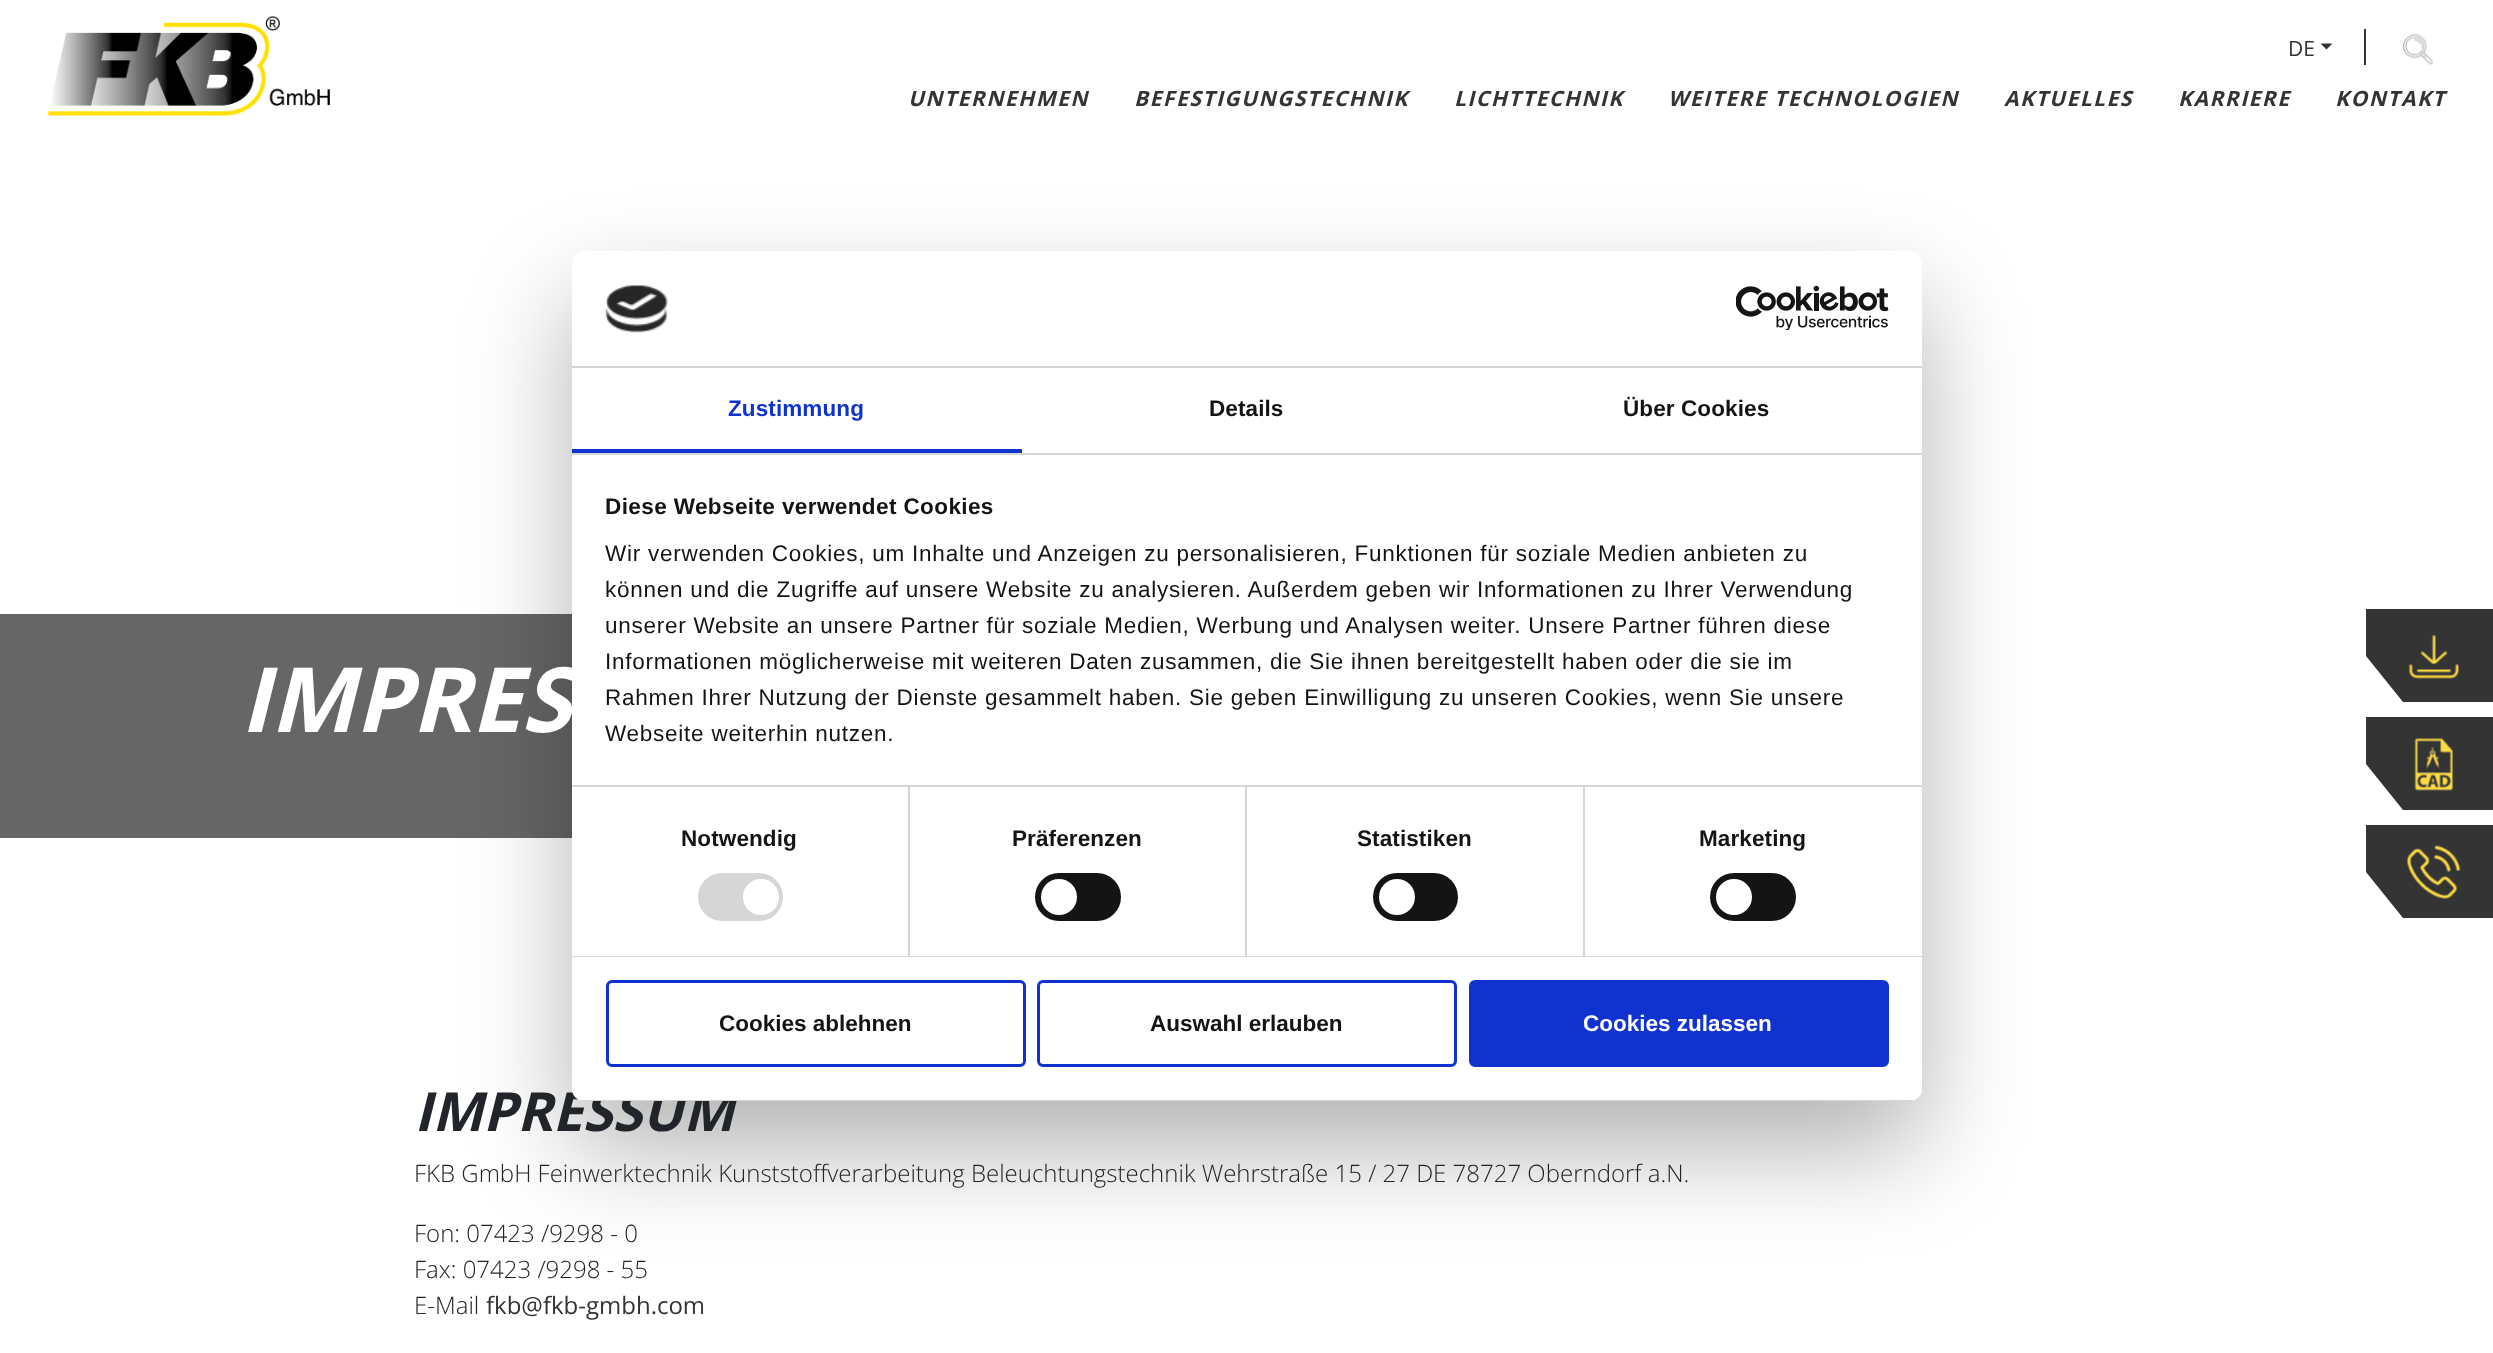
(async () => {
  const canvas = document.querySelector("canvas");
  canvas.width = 2493;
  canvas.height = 1353;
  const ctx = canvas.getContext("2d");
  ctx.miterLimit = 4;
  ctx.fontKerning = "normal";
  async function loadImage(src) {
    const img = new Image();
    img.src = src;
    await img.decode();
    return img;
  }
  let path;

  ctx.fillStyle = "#ffffff";
  ctx.fillRect(0, 0, 2493, 1353);
  ctx.drawImage(await loadImage("img/1.png"), 48, 16, 282, 100);
  ctx.fillStyle = "#343434";
  ctx.fillRect(2364, 29, 2, 36);
  path = new Path2D("M2320.5 43.5H2332.5L2326.5 49.5Z");
  ctx.fill(path);
  ctx.drawImage(await loadImage("img/2.png"), 2403, 34, 30, 31);
  ctx.fillStyle = "#666666";
  path = new Path2D("M0 614H848V726L668 838H0Z");
  ctx.fill(path);
  ctx.fillStyle = "rgba(0, 0, 0, 0.3)";
  ctx.filter = "blur(51px)";
  ctx.beginPath();
  ctx.roundRect(572, 299, 1350, 850, 12);
  ctx.fill();
  ctx.filter = "none";
  ctx.fillStyle = "#343434";
  path = new Path2D("M2366 609H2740V702H2403L2366 656Z");
  ctx.fill(path);
  ctx.drawImage(await loadImage("img/5.png"), 2408, 634, 51, 45);
  path = new Path2D("M2366 717H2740V810H2403L2366 764Z");
  ctx.fill(path);
  ctx.drawImage(await loadImage("img/6.png"), 2414, 738, 40, 53);
  path = new Path2D("M2366 825H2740V918H2403L2366 872Z");
  ctx.fill(path);
  ctx.drawImage(await loadImage("img/7.png"), 2407, 845, 54, 54);
  ctx.font = "21px Open Sans";
  ctx.fillText("DE", 2288, 56);
  ctx.letterSpacing = "1.5px";
  ctx.font = "italic bold 21px Open Sans";
  for (const [text, x, y] of [
    ["UNTERNEHMEN", 908, 106],
    ["BEFESTIGUNGSTECHNIK", 1134, 106],
    ["LICHTTECHNIK", 1454, 106],
    ["WEITERE TECHNOLOGIEN", 1668, 106],
    ["AKTUELLES", 2004, 106],
    ["KARRIERE", 2178, 106],
    ["KONTAKT", 2335, 106],
  ]) {
    ctx.fillText(text, x, y);
  }
  ctx.letterSpacing = "0px";
  ctx.font = "italic bold 90px Open Sans";
  ctx.fillStyle = "#ffffff";
  ctx.fillText("IMPRES", 240, 732);
  ctx.font = "italic bold 54px Open Sans";
  ctx.fillStyle = "#212529";
  ctx.fillText("IMPRESSUM", 414, 1131);
  ctx.fillStyle = "#ffffff";
  ctx.beginPath();
  ctx.roundRect(572, 251, 1350, 850, 12);
  ctx.fill();
  ctx.fillStyle = "#1032cf";
  ctx.beginPath();
  ctx.roundRect(1470.5, 981.5, 417, 84, 4.5);
  ctx.fill();
  ctx.strokeStyle = "#1032cf";
  ctx.lineWidth = 3;
  ctx.stroke();
  ctx.font = "bold 22.5px Liberation Sans";
  ctx.fillStyle = "#ffffff";
  ctx.fillText("Cookies zulassen", 1583, 1031);
  ctx.beginPath();
  ctx.roundRect(1038.5, 981.5, 417, 84, 4.5);
  ctx.stroke();
  ctx.fillStyle = "#141414";
  ctx.fillText("Auswahl erlauben", 1150, 1031);
  ctx.beginPath();
  ctx.roundRect(607.5, 981.5, 417, 84, 4.5);
  ctx.stroke();
  ctx.fillText("Cookies ablehnen", 719, 1031);
  ctx.save();
  ctx.beginPath();
  ctx.roundRect(572, 251, 1350, 850, 12);
  ctx.clip();
  ctx.fillStyle = "#d6d6d6";
  ctx.fillRect(572, 1100, 1350, 1);
  ctx.restore();
  ctx.beginPath();
  ctx.roundRect(1710, 873, 86, 48, 24);
  ctx.fill();
  ctx.fillStyle = "#ffffff";
  ctx.beginPath();
  ctx.arc(1734, 897, 18, 0, Math.PI * 2);
  ctx.fill();
  ctx.fillStyle = "#141414";
  ctx.beginPath();
  ctx.roundRect(1373, 873, 85, 48, 24);
  ctx.fill();
  ctx.fillStyle = "#ffffff";
  ctx.beginPath();
  ctx.arc(1397, 897, 18, 0, Math.PI * 2);
  ctx.fill();
  ctx.fillStyle = "#141414";
  ctx.beginPath();
  ctx.roundRect(1035, 873, 86, 48, 24);
  ctx.fill();
  ctx.fillStyle = "#ffffff";
  ctx.beginPath();
  ctx.arc(1059, 897, 18, 0, Math.PI * 2);
  ctx.fill();
  ctx.fillStyle = "#d6d6d6";
  ctx.beginPath();
  ctx.roundRect(698, 873, 85, 48, 24);
  ctx.fill();
  ctx.fillStyle = "#ffffff";
  ctx.beginPath();
  ctx.arc(761, 897, 18, 0, Math.PI * 2);
  ctx.fill();
  ctx.letterSpacing = "0.75px";
  ctx.font = "22.5px Liberation Sans";
  ctx.fillStyle = "#141414";
  for (const [text, x, y] of [
    ["Webseite weiterhin nutzen.", 605, 741],
    ["Rahmen Ihrer Nutzung der Dienste gesammelt haben. Sie geben Einwilligung zu unseren Cookies, wenn Sie unsere", 605, 705],
    ["Informationen möglicherweise mit weiteren Daten zusammen, die Sie ihnen bereitgestellt haben oder die sie im", 605, 669],
    ["unserer Website an unsere Partner für soziale Medien, Werbung und Analysen weiter. Unsere Partner führen diese", 605, 633],
    ["können und die Zugriffe auf unsere Website zu analysieren. Außerdem geben wir Informationen zu Ihrer Verwendung", 605, 597],
    ["Wir verwenden Cookies, um Inhalte und Anzeigen zu personalisieren, Funktionen für soziale Medien anbieten zu", 605, 561],
  ]) {
    ctx.fillText(text, x, y);
  }
  ctx.letterSpacing = "0.4px";
  ctx.font = "bold 22.5px Liberation Sans";
  ctx.fillText("Diese Webseite verwendet Cookies", 605, 514);
  for (const [x, y, w, h, color] of [
    [1583, 786, 2, 170, "#d6d6d6"],
    [1245, 786, 2, 170, "#d6d6d6"],
    [908, 786, 2, 170, "#d6d6d6"],
    [572, 785, 1350, 2, "#d6d6d6"],
  ]) {
    ctx.fillStyle = color;
    ctx.fillRect(x, y, w, h);
  }
  ctx.letterSpacing = "0.1px";
  ctx.fillStyle = "#141414";
  ctx.fillText("Über Cookies", 1623, 416);
  ctx.fillText("Details", 1209, 416);
  ctx.fillStyle = "#1032cf";
  ctx.fillText("Zustimmung", 728, 416);
  ctx.fillRect(572, 449, 450, 4);
  ctx.fillStyle = "#d6d6d6";
  ctx.fillRect(572, 453, 1350, 2);
  ctx.fillStyle = "#141414";
  for (const [text, x, y] of [
    ["Marketing", 1699, 846],
    ["Statistiken", 1357, 846],
    ["Präferenzen", 1012, 846],
    ["Notwendig", 681, 846],
  ]) {
    ctx.fillText(text, x, y);
  }
  ctx.fillStyle = "#d6d6d6";
  ctx.fillRect(572, 956, 1350, 1);
  ctx.drawImage(await loadImage("img/4.png"), 1736, 285, 153, 45);
  ctx.drawImage(await loadImage("img/3.png"), 605, 285, 64, 48);
  ctx.fillRect(572, 366, 1350, 2);
  ctx.letterSpacing = "0px";
  ctx.font = "300 24px Open Sans";
  ctx.fillStyle = "#212529";
  for (const [text, x, y] of [
    ["FKB GmbH Feinwerktechnik Kunststoffverarbeitung Beleuchtungstechnik Wehrstraße 15 / 27 DE 78727 Oberndorf a.N.", 414, 1182],
    ["Fon: 07423 /9298 - 0 ", 414, 1242],
    ["Fax: 07423 /9298 - 55", 414, 1278],
    ["E-Mail", 414, 1314],
  ]) {
    ctx.fillText(text, x, y);
  }
  ctx.font = "24px Open Sans";
  ctx.fillStyle = "#343434";
  ctx.fillText("fkb@fkb-gmbh.com", 486, 1314);
})();
